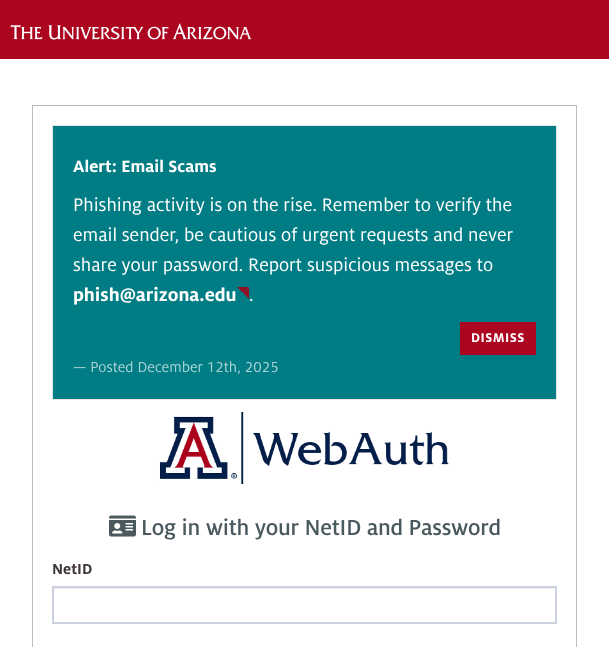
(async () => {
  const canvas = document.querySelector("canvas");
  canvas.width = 609;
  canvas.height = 647;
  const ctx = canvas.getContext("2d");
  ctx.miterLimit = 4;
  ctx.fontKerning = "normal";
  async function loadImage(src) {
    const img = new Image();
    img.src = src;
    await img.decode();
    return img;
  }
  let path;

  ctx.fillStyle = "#ffffff";
  ctx.fillRect(0, 0, 609, 647);
  ctx.fillStyle = "#ab0520";
  ctx.fillRect(0, 0, 609, 59);
  ctx.drawImage(await loadImage("img/1.png"), 10, 23, 242, 17);
  ctx.strokeStyle = "#b6bec1";
  ctx.strokeRect(32.5, 105.5, 544, 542);
  ctx.fillStyle = "#007d84";
  ctx.beginPath();
  ctx.rect(52.5, 125.5, 504, 274);
  ctx.fill();
  ctx.strokeStyle = "#e5e5e5";
  ctx.stroke();
  ctx.fillStyle = "#8f1124";
  path = new Path2D("M237 287H249L243 293Z");
  ctx.fill(path);
  path = new Path2D("M249 287V299L243 293Z");
  ctx.fill(path);
  ctx.fillStyle = "#ab0520";
  ctx.fillRect(460, 322, 76, 33);
  ctx.drawImage(await loadImage("img/2.png"), 159, 412, 290, 72);
  ctx.drawImage(await loadImage("img/3.png"), 109, 515, 27, 22);
  ctx.fillStyle = "#ececec";
  ctx.fillRect(54, 588, 501, 1);
  ctx.strokeStyle = "#cbd1e0";
  ctx.lineWidth = 2;
  ctx.strokeRect(53, 587, 503, 36);
  ctx.font = "bold 18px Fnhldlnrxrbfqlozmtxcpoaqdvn";
  ctx.fillStyle = "#ffffff";
  ctx.fillText("Alert: Email Scams", 73, 172);
  ctx.font = "20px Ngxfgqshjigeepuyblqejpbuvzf";
  for (const [text, x, y] of [
    ["Phishing activity is on the rise. Remember to verify the", 73, 211],
    ["email sender, be cautious of urgent requests and never", 73, 241],
    ["share your password. Report suspicious messages to", 73, 271],
  ]) {
    ctx.fillText(text, x, y);
  }
  ctx.font = "bold 20px Fnhldlnrxrbfqlozmtxcpoaqdvn";
  ctx.fillText("phish@arizona.edu", 73, 301);
  ctx.font = "20px Ngxfgqshjigeepuyblqejpbuvzf";
  ctx.fillText(".", 249, 301);
  ctx.letterSpacing = "0.5px";
  ctx.font = "bold 14px Fnhldlnrxrbfqlozmtxcpoaqdvn";
  ctx.fillText("DISMISS", 471, 342);
  ctx.letterSpacing = "0px";
  ctx.font = "16px Ngxfgqshjigeepuyblqejpbuvzf";
  ctx.fillStyle = "#a6d2d4";
  ctx.fillText("— Posted December 12th, 2025", 73, 372);
  ctx.letterSpacing = "-0.25px";
  ctx.font = "500 24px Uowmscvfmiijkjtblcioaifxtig";
  ctx.fillStyle = "#49595e";
  ctx.fillText("Log in with your NetID and Password", 141, 535);
  ctx.letterSpacing = "0px";
  ctx.font = "bold 16px Fnhldlnrxrbfqlozmtxcpoaqdvn";
  ctx.fillStyle = "#403635";
  ctx.fillText("NetID", 52, 574);
})();
